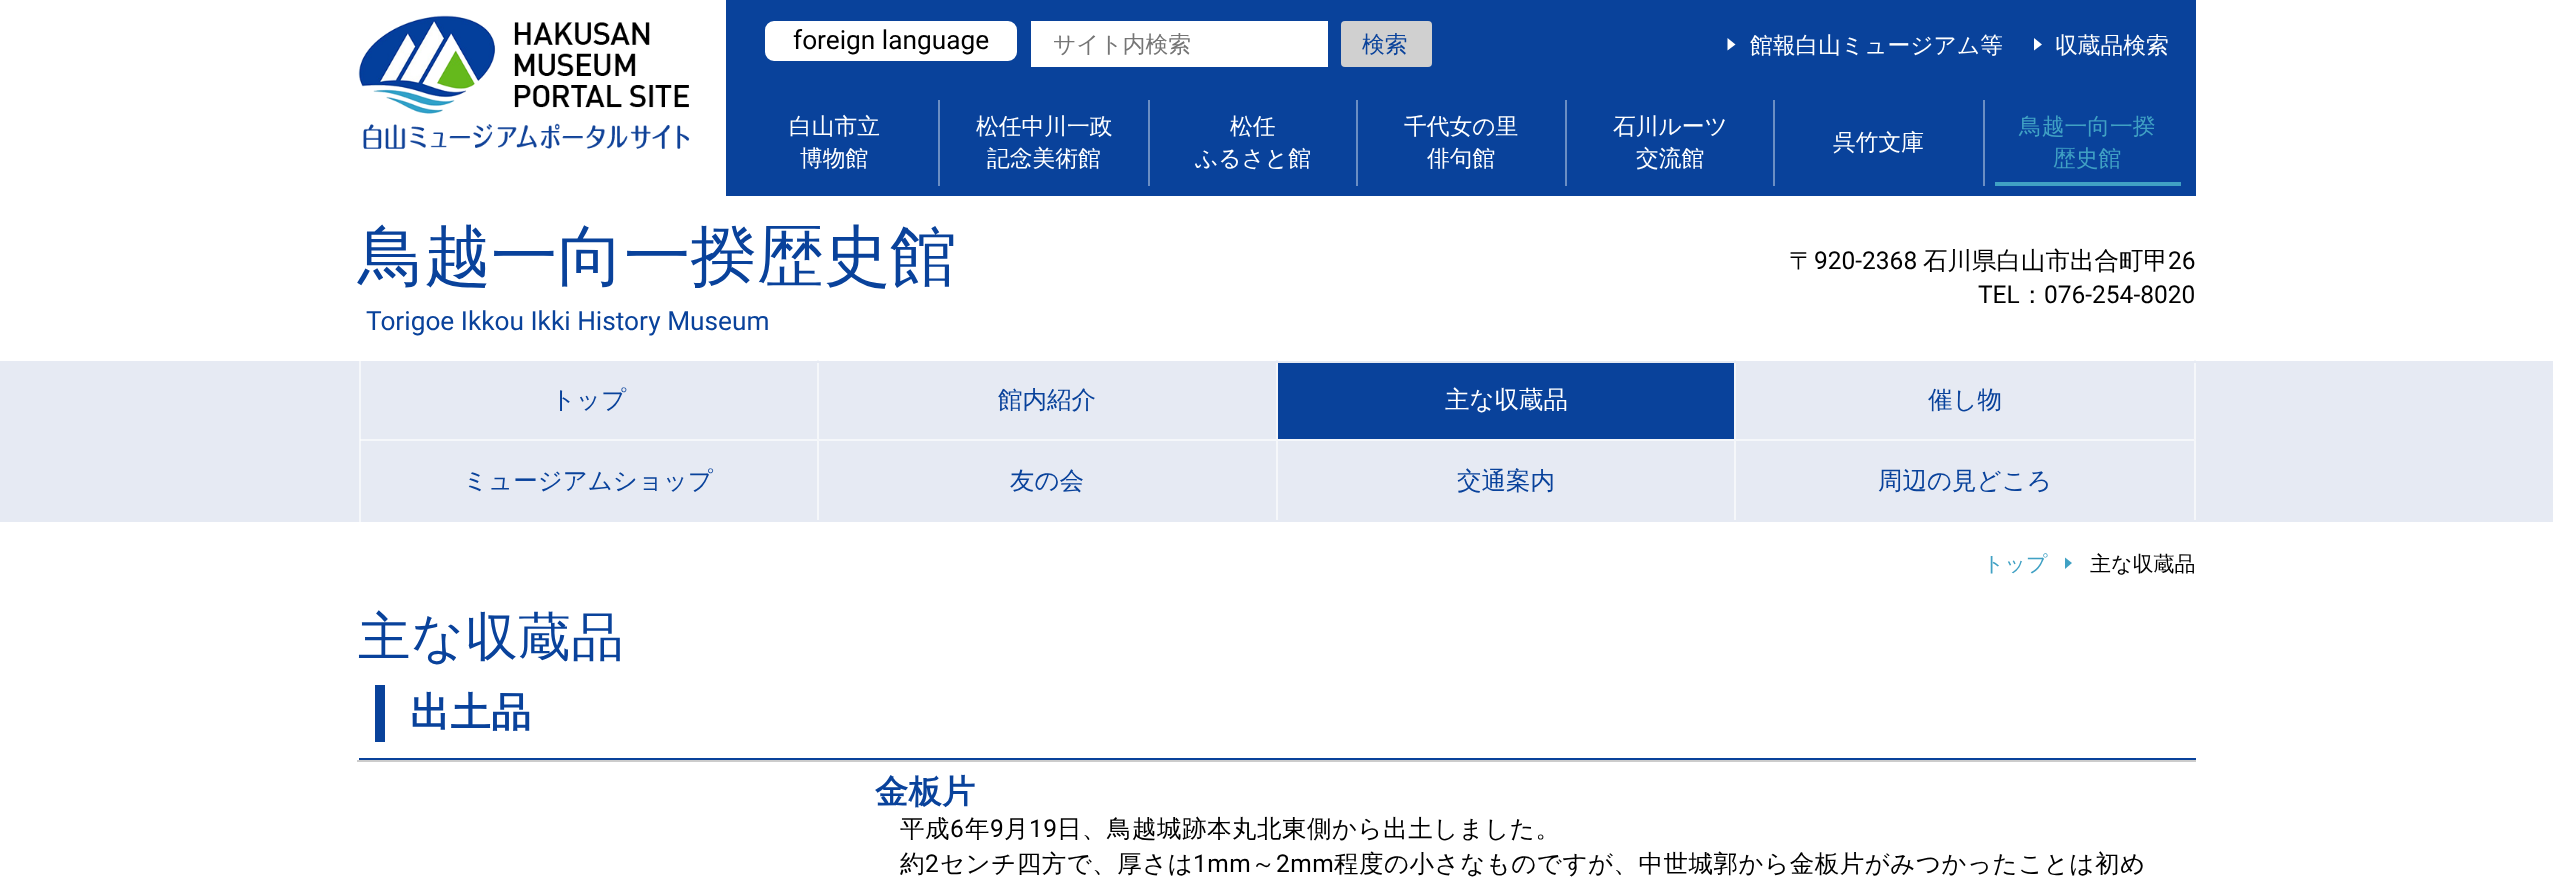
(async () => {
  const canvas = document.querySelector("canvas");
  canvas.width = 2553;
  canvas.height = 888;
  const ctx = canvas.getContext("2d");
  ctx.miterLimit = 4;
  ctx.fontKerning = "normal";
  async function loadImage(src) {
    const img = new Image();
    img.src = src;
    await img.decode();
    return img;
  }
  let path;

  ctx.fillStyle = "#ffffff";
  ctx.fillRect(0, 0, 2553, 888);
  ctx.drawImage(await loadImage("img/1.png"), 358, 15, 332, 134);
  ctx.fillStyle = "#09429b";
  ctx.fillRect(726, 0, 1470, 196);
  ctx.fillStyle = "#ffffff";
  ctx.beginPath();
  ctx.roundRect(766, 22, 250, 38, 8);
  ctx.fill();
  ctx.strokeStyle = "#ffffff";
  ctx.lineWidth = 2;
  ctx.stroke();
  ctx.fillRect(1031, 21, 297, 46);
  ctx.fillStyle = "#d0d0d0";
  ctx.beginPath();
  ctx.roundRect(1341, 21, 91, 46, 4);
  ctx.fill();
  ctx.fillStyle = "#ffffff";
  path = new Path2D("M1727.5 50.5V38L1735.5 44.5Z");
  ctx.fill(path);
  path = new Path2D("M2034 50.5V38L2042 44.5Z");
  ctx.fill(path);
  for (const [x, y, w, h, color] of [
    [938, 100, 2, 86, "#6b8ec3"],
    [1148, 100, 2, 86, "#6b8ec3"],
    [1356, 100, 2, 86, "#6b8ec3"],
    [1565, 100, 2, 86, "#6b8ec3"],
    [1773, 100, 2, 86, "#6b8ec3"],
    [1983, 100, 2, 86, "#6b8ec3"],
    [1995, 182, 186, 4, "#40a1c4"],
    [0, 361, 2553, 161, "#e6eaf3"],
    [359, 361, 2, 161, "#f5f7fa"],
  ]) {
    ctx.fillStyle = color;
    ctx.fillRect(x, y, w, h);
  }
  path = new Path2D("M819 360V441L817 439V360Z");
  ctx.fill(path);
  path = new Path2D("M1278 360V441L1276 439V360Z");
  ctx.fill(path);
  path = new Path2D("M1736 360V441L1734 439V360Z");
  ctx.fill(path);
  path = new Path2D("M2196 360V441L2194 439V360Z");
  ctx.fill(path);
  ctx.fillStyle = "#e6eaf3";
  ctx.fillRect(817, 361, 1379, 2);
  ctx.fillStyle = "rgba(255, 255, 255, 0.6)";
  path = new Path2D("M819 441H360V439H817Z");
  ctx.fill(path);
  path = new Path2D("M1278 441H819V439H1276Z");
  ctx.fill(path);
  path = new Path2D("M1736 441H1278V439H1734Z");
  ctx.fill(path);
  ctx.fillStyle = "#09429b";
  ctx.fillRect(1278, 363, 456, 76);
  ctx.fillStyle = "rgba(255, 255, 255, 0.6)";
  path = new Path2D("M2196 441H1736V439H2194Z");
  ctx.fill(path);
  ctx.fillStyle = "#f5f7fa";
  path = new Path2D("M819 441V522L817 520V441Z");
  ctx.fill(path);
  path = new Path2D("M1278 441V522L1276 520V441Z");
  ctx.fill(path);
  path = new Path2D("M1736 441V522L1734 520V441Z");
  ctx.fill(path);
  path = new Path2D("M2196 441V522L2194 520V441Z");
  ctx.fill(path);
  ctx.fillStyle = "#e6eaf3";
  ctx.fillRect(817, 520, 1379, 2);
  ctx.fillStyle = "#40a1c4";
  path = new Path2D("M2065 569V557.5L2072 563Z");
  ctx.fill(path);
  for (const [x, y, w, h, color] of [
    [359, 758, 1837, 2, "#09429b"],
    [375, 685, 10, 57, "#09429b"],
    [357, 760, 1839, 2, "#cccccc"],
  ]) {
    ctx.fillStyle = color;
    ctx.fillRect(x, y, w, h);
  }
  ctx.font = "26.25px Roboto";
  ctx.fillStyle = "#000000";
  ctx.fillText("foreign language", 793, 49);
  ctx.font = "500 22.75px WenQuanYi Zen Hei";
  ctx.fillStyle = "#757575";
  ctx.fillText("サイト内検索", 1053, 52);
  ctx.fillStyle = "#09429b";
  ctx.fillText("検索", 1362, 52);
  ctx.fillStyle = "#ffffff";
  for (const [text, x, y] of [
    ["館報白山ミュージアム等", 1750, 53],
    ["収蔵品検索", 2055, 53],
    ["白山市立", 789, 134],
    ["博物館", 800, 166],
    ["松任中川一政", 976, 134],
    ["記念美術館", 987, 166],
    ["松任", 1230, 134],
    ["ふるさと館", 1195, 166],
    ["千代女の里", 1404, 134],
    ["俳句館", 1427, 166],
    ["石川ルーツ", 1613, 134],
    ["交流館", 1636, 166],
    ["呉竹文庫", 1833, 150],
  ]) {
    ctx.fillText(text, x, y);
  }
  ctx.fillStyle = "#40a1c4";
  ctx.fillText("鳥越一向一揆", 2019, 134);
  ctx.fillText("歴史館", 2053, 166);
  ctx.font = "500 66.5px WenQuanYi Zen Hei";
  ctx.fillStyle = "#09429b";
  ctx.fillText("鳥越一向一揆歴史館", 358, 279);
  ctx.font = "26.25px Roboto";
  ctx.fillText("Torigoe Ikkou Ikki History Museum", 366, 330);
  ctx.font = "500 24.5px WenQuanYi Zen Hei";
  ctx.fillStyle = "#000000";
  ctx.fillText("〒", 1789, 269);
  ctx.font = "24.5px Roboto";
  ctx.fillText("920-2368", 1814, 269);
  ctx.font = "500 24.5px WenQuanYi Zen Hei";
  ctx.fillText("石川県白山市出合町甲", 1923, 269);
  ctx.font = "24.5px Roboto";
  ctx.fillText("26", 2168, 269);
  ctx.fillText("TEL", 1978, 303);
  ctx.font = "500 24.5px WenQuanYi Zen Hei";
  ctx.fillText("：", 2020, 303);
  ctx.font = "24.5px Roboto";
  ctx.fillText("076-254-8020", 2044, 303);
  ctx.font = "500 24.5px WenQuanYi Zen Hei";
  ctx.fillStyle = "#09429b";
  ctx.fillText("トップ", 551, 408);
  ctx.fillText("館内紹介", 998, 408);
  ctx.fillStyle = "#ffffff";
  ctx.fillText("主な収蔵品", 1445, 408);
  ctx.fillStyle = "#09429b";
  for (const [text, x, y] of [
    ["催し物", 1928, 408],
    ["ミュージアムショップ", 463, 489],
    ["友の会", 1010, 489],
    ["交通案内", 1457, 489],
    ["周辺の見どころ", 1878, 489],
  ]) {
    ctx.fillText(text, x, y);
  }
  ctx.font = "500 21px WenQuanYi Zen Hei";
  ctx.fillStyle = "#40a1c4";
  ctx.fillText("トップ", 1983, 571);
  ctx.fillStyle = "#000000";
  ctx.fillText("主な収蔵品", 2090, 571);
  ctx.letterSpacing = "0.5px";
  ctx.font = "500 52.5px WenQuanYi Zen Hei";
  ctx.fillStyle = "#09429b";
  ctx.fillText("主な収蔵品", 358, 655);
  ctx.font = "bold 40px WenQuanYi Zen Hei";
  ctx.fillText("出土品", 410, 726);
  ctx.font = "bold 33px WenQuanYi Zen Hei";
  ctx.fillText("金板片", 875, 803);
  ctx.font = "500 24.5px WenQuanYi Zen Hei";
  ctx.fillStyle = "#000000";
  ctx.fillText("平成", 900, 837);
  ctx.font = "24.5px Roboto";
  ctx.fillText("6", 950, 837);
  ctx.font = "500 24.5px WenQuanYi Zen Hei";
  ctx.fillText("年", 965, 837);
  ctx.font = "24.5px Roboto";
  ctx.fillText("9", 990, 837);
  ctx.font = "500 24.5px WenQuanYi Zen Hei";
  ctx.fillText("月", 1004, 837);
  ctx.font = "24.5px Roboto";
  ctx.fillText("19", 1029, 837);
  ctx.font = "500 24.5px WenQuanYi Zen Hei";
  ctx.fillText("日、鳥越城跡本丸北東側から出土しました。", 1057, 837);
  ctx.fillText("約", 900, 872);
  ctx.font = "24.5px Roboto";
  ctx.fillText("2", 925, 872);
  ctx.font = "500 24.5px WenQuanYi Zen Hei";
  ctx.fillText("センチ四方で、厚さは", 940, 872);
  ctx.font = "24.5px Roboto";
  ctx.fillText("1mm", 1193, 872);
  ctx.font = "500 24.5px WenQuanYi Zen Hei";
  ctx.fillText("～", 1251, 872);
  ctx.font = "24.5px Roboto";
  ctx.fillText("2mm", 1276, 872);
  ctx.font = "500 24.5px WenQuanYi Zen Hei";
  ctx.fillText("程度の小さなものですが、中世城郭から金板片がみつかったことは初め", 1334, 872);
})();
